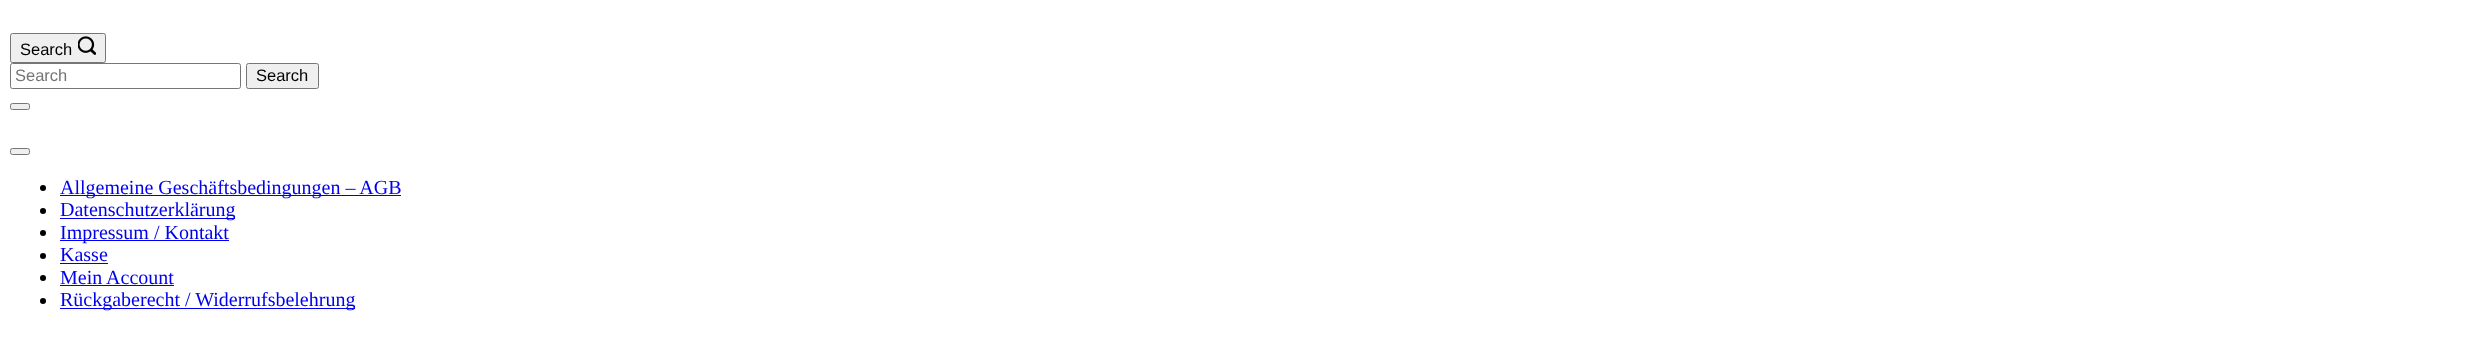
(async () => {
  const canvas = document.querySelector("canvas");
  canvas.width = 2481;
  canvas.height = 337;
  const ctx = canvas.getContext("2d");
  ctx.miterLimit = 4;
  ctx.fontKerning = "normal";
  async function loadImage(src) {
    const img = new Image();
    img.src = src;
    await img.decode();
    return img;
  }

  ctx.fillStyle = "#ffffff";
  ctx.fillRect(0, 0, 2481, 337);
  ctx.fillStyle = "#efefef";
  ctx.beginPath();
  ctx.roundRect(10.5, 33.5, 95, 29, 2);
  ctx.fill();
  ctx.strokeStyle = "#767676";
  ctx.stroke();
  ctx.drawImage(await loadImage("img/1.png"), 78, 36, 18, 19);
  ctx.beginPath();
  ctx.roundRect(10.5, 63.5, 230, 25, 2);
  ctx.stroke();
  ctx.beginPath();
  ctx.roundRect(246.5, 63.5, 72, 25, 2);
  ctx.fill();
  ctx.stroke();
  ctx.beginPath();
  ctx.roundRect(10.5, 103.5, 19, 6, 2);
  ctx.fill();
  ctx.stroke();
  ctx.beginPath();
  ctx.roundRect(10.5, 148.5, 19, 6, 2);
  ctx.fill();
  ctx.stroke();
  ctx.fillStyle = "#000000";
  ctx.beginPath();
  ctx.arc(43, 188, 3, 0, Math.PI * 2);
  ctx.fill();
  ctx.fillStyle = "#0000ee";
  ctx.fillRect(60, 195, 341, 1);
  ctx.fillStyle = "#000000";
  ctx.beginPath();
  ctx.arc(43, 211, 3, 0, Math.PI * 2);
  ctx.fill();
  ctx.fillStyle = "#0000ee";
  ctx.fillRect(60, 218, 175, 1);
  ctx.fillStyle = "#000000";
  ctx.beginPath();
  ctx.arc(43, 233, 3, 0, Math.PI * 2);
  ctx.fill();
  ctx.fillStyle = "#0000ee";
  ctx.fillRect(60, 240, 169, 1);
  ctx.fillStyle = "#000000";
  ctx.beginPath();
  ctx.arc(43, 256, 3, 0, Math.PI * 2);
  ctx.fill();
  ctx.fillStyle = "#0000ee";
  ctx.fillRect(60, 263, 48, 1);
  ctx.fillStyle = "#000000";
  ctx.beginPath();
  ctx.arc(43, 278, 3, 0, Math.PI * 2);
  ctx.fill();
  ctx.fillStyle = "#0000ee";
  ctx.fillRect(60, 285, 114, 1);
  ctx.fillStyle = "#000000";
  ctx.beginPath();
  ctx.arc(43, 301, 3, 0, Math.PI * 2);
  ctx.fill();
  ctx.fillStyle = "#0000ee";
  ctx.fillRect(60, 308, 295, 1);
  ctx.font = "16.5px Liberation Sans";
  ctx.fillStyle = "#000000";
  ctx.fillText("Search", 20, 55);
  ctx.fillStyle = "#757575";
  ctx.fillText("Search", 15, 81);
  ctx.fillStyle = "#000000";
  ctx.fillText("Search", 256, 81);
  ctx.font = "20px Liberation Serif";
  ctx.fillStyle = "#0000ee";
  for (const [text, x, y] of [
    ["Allgemeine Geschäftsbedingungen – AGB", 60, 194],
    ["Datenschutzerklärung", 60, 216],
    ["Impressum / Kontakt", 60, 239],
    ["Kasse", 60, 261],
    ["Mein Account", 60, 284],
    ["Rückgaberecht / Widerrufsbelehrung", 60, 306],
  ]) {
    ctx.fillText(text, x, y);
  }
})();
